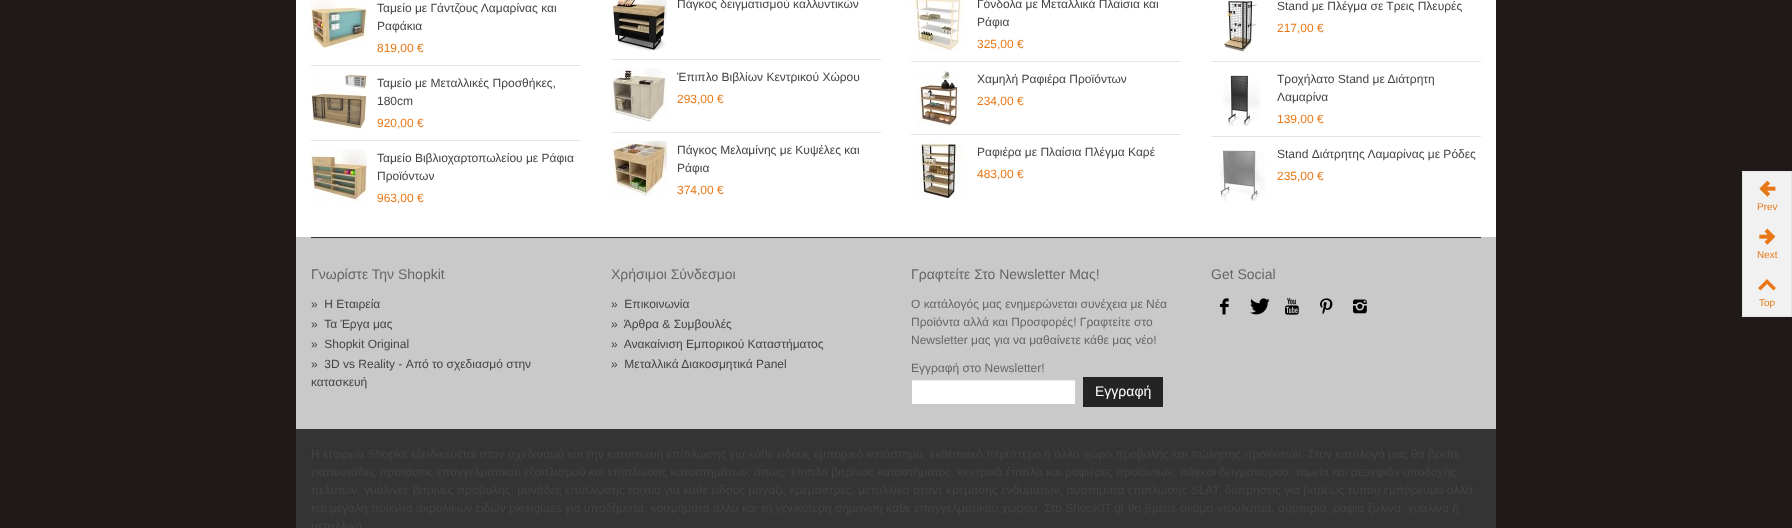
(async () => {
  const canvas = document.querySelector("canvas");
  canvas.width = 1792;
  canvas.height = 528;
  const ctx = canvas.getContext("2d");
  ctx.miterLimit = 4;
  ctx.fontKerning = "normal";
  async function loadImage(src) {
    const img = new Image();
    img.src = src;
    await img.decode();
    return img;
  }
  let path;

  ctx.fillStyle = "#1f1a17";
  ctx.fillRect(0, 0, 1792, 528);
  ctx.fillStyle = "#ffffff";
  ctx.fillRect(296, 0, 1200, 237);
  ctx.fillStyle = "#e5e5e5";
  ctx.fillRect(311, 65, 270, 1);
  ctx.drawImage(await loadImage("img/1.png"), 311, 0, 56, 49);
  ctx.fillRect(311, 140, 270, 1);
  ctx.drawImage(await loadImage("img/2.png"), 311, 74, 56, 55);
  ctx.drawImage(await loadImage("img/3.png"), 311, 149, 56, 56);
  ctx.fillRect(611, 59, 270, 1);
  ctx.drawImage(await loadImage("img/4.png"), 612, 0, 55, 51);
  ctx.fillRect(611, 132, 270, 1);
  ctx.drawImage(await loadImage("img/5.png"), 611, 68, 56, 55);
  ctx.drawImage(await loadImage("img/6.png"), 611, 141, 56, 56);
  ctx.fillRect(911, 61, 270, 1);
  ctx.drawImage(await loadImage("img/7.png"), 911, 0, 54, 51);
  ctx.fillRect(911, 134, 270, 1);
  ctx.drawImage(await loadImage("img/8.png"), 915, 70, 44, 56);
  ctx.drawImage(await loadImage("img/9.png"), 911, 143, 56, 56);
  ctx.fillRect(1211, 61, 270, 1);
  ctx.drawImage(await loadImage("img/10.png"), 1224, 1, 33, 51);
  ctx.fillRect(1211, 136, 270, 1);
  ctx.drawImage(await loadImage("img/11.png"), 1223, 75, 38, 51);
  ctx.drawImage(await loadImage("img/12.png"), 1219, 150, 47, 51);
  for (const [x, y, w, h, color] of [
    [296, 237, 1200, 192, "#c9c9c9"],
    [311, 237, 1170, 1, "#343434"],
    [912, 381, 163, 23, "#ffffff"],
    [912, 380, 163, 1, "#ececec"],
  ]) {
    ctx.fillStyle = color;
    ctx.fillRect(x, y, w, h);
  }
  ctx.strokeStyle = "#cccccc";
  ctx.strokeRect(911.5, 379.5, 164, 25);
  ctx.fillStyle = "#242424";
  ctx.fillRect(1083, 377, 80, 30);
  ctx.drawImage(await loadImage("img/13.png"), 1220, 298, 9, 17);
  ctx.drawImage(await loadImage("img/14.png"), 1250, 298, 20, 17);
  ctx.drawImage(await loadImage("img/15.png"), 1285, 298, 14, 17);
  ctx.drawImage(await loadImage("img/16.png"), 1320, 298, 13, 17);
  ctx.drawImage(await loadImage("img/17.png"), 1353, 299, 14, 15);
  for (const [x, y, w, h, color] of [
    [296, 429, 1200, 99, "#343434"],
    [1743, 172, 48, 144, "#f1f1f1"],
    [1742, 171, 50, 1, "#e5e5e5"],
    [1791, 171, 1, 146, "#e5e5e5"],
    [1742, 316, 50, 1, "#e5e5e5"],
    [1742, 172, 1, 144, "#e5e5e5"],
  ]) {
    ctx.fillStyle = color;
    ctx.fillRect(x, y, w, h);
  }
  ctx.drawImage(await loadImage("img/18.png"), 1759, 180, 17, 17);
  ctx.drawImage(await loadImage("img/19.png"), 1759, 228, 17, 17);
  ctx.fillStyle = "#e87817";
  path = new Path2D("M1758 288L1767 279L1776 288L1773.5 290.5L1767 284L1760.5 290.5Z");
  ctx.fill(path);
  ctx.font = "12px Liberation Sans";
  ctx.fillStyle = "#444444";
  ctx.fillText("Ταμείο με Γάντζους Λαμαρίνας και", 377, 12);
  ctx.fillText("Ραφάκια", 377, 30);
  ctx.fillStyle = "#e87817";
  ctx.fillText("819,00 €", 377, 52);
  ctx.fillStyle = "#444444";
  ctx.fillText("Ταμείο με Μεταλλικές Προσθήκες,", 377, 87);
  ctx.fillText("180cm", 377, 105);
  ctx.fillStyle = "#e87817";
  ctx.fillText("920,00 €", 377, 127);
  ctx.fillStyle = "#444444";
  ctx.fillText("Ταμείο Βιβλιοχαρτοπωλείου με Ράφια", 377, 162);
  ctx.fillText("Προϊόντων", 377, 180);
  ctx.fillStyle = "#e87817";
  ctx.fillText("963,00 €", 377, 202);
  ctx.fillStyle = "#444444";
  ctx.fillText("Πάγκος δειγματισμού καλλυντικών", 677, 8);
  ctx.fillText("Έπιπλο Βιβλίων Κεντρικού Χώρου", 677, 81);
  ctx.fillStyle = "#e87817";
  ctx.fillText("293,00 €", 677, 103);
  ctx.fillStyle = "#444444";
  ctx.fillText("Πάγκος Μελαμίνης με Κυψέλες και", 677, 154);
  ctx.fillText("Ράφια", 677, 172);
  ctx.fillStyle = "#e87817";
  ctx.fillText("374,00 €", 677, 194);
  ctx.fillStyle = "#444444";
  ctx.fillText("Γόνδολα με Μεταλλικά Πλαίσια και", 977, 8);
  ctx.fillText("Ράφια", 977, 26);
  ctx.fillStyle = "#e87817";
  ctx.fillText("325,00 €", 977, 48);
  ctx.fillStyle = "#444444";
  ctx.fillText("Χαμηλή Ραφιέρα Προϊόντων", 977, 83);
  ctx.fillStyle = "#e87817";
  ctx.fillText("234,00 €", 977, 105);
  ctx.fillStyle = "#444444";
  ctx.fillText("Ραφιέρα με Πλαίσια Πλέγμα Καρέ", 977, 156);
  ctx.fillStyle = "#e87817";
  ctx.fillText("483,00 €", 977, 178);
  ctx.fillStyle = "#444444";
  ctx.fillText("Stand με Πλέγμα σε Τρεις Πλευρές", 1277, 10);
  ctx.fillStyle = "#e87817";
  ctx.fillText("217,00 €", 1277, 32);
  ctx.fillStyle = "#444444";
  ctx.fillText("Τροχήλατο Stand με Διάτρητη", 1277, 83);
  ctx.fillText("Λαμαρίνα", 1277, 101);
  ctx.fillStyle = "#e87817";
  ctx.fillText("139,00 €", 1277, 123);
  ctx.fillStyle = "#444444";
  ctx.fillText("Stand Διάτρητης Λαμαρίνας με Ρόδες", 1277, 158);
  ctx.fillStyle = "#e87817";
  ctx.fillText("235,00 €", 1277, 180);
  ctx.font = "14px Liberation Sans";
  ctx.fillStyle = "#666666";
  ctx.fillText("Γνωρίστε Την Shopkit", 311, 279);
  ctx.font = "12px Liberation Sans";
  ctx.fillStyle = "#444444";
  for (const [text, x, y] of [
    ["»  Η Εταιρεία", 311, 308],
    ["»  Τα Έργα μας", 311, 328],
    ["»  Shopkit Original", 311, 348],
    ["»  3D vs Reality - Από το σχεδιασμό στην", 311, 368],
    ["κατασκευή", 311, 386],
  ]) {
    ctx.fillText(text, x, y);
  }
  ctx.font = "14px Liberation Sans";
  ctx.fillStyle = "#666666";
  ctx.fillText("Χρήσιμοι Σύνδεσμοι", 611, 279);
  ctx.font = "12px Liberation Sans";
  ctx.fillStyle = "#444444";
  for (const [text, x, y] of [
    ["»  Επικοινωνία", 611, 308],
    ["»  Άρθρα & Συμβουλές", 611, 328],
    ["»  Ανακαίνιση Εμπορικού Καταστήματος", 611, 348],
    ["»  Μεταλλικά Διακοσμητικά Panel", 611, 368],
  ]) {
    ctx.fillText(text, x, y);
  }
  ctx.font = "14px Liberation Sans";
  ctx.fillStyle = "#666666";
  ctx.fillText("Γραφτείτε Στο Newsletter Μας!", 911, 279);
  ctx.font = "12px Liberation Sans";
  for (const [text, x, y] of [
    ["Ο κατάλογός μας ενημερώνεται συνέχεια με Νέα", 911, 308],
    ["Προϊόντα αλλά και Προσφορές! Γραφτείτε στο", 911, 326],
    ["Newsletter μας για να μαθαίνετε κάθε μας νέο!", 911, 344],
    ["Εγγραφή στο Newsletter!", 911, 372],
  ]) {
    ctx.fillText(text, x, y);
  }
  ctx.font = "14px Liberation Sans";
  ctx.fillStyle = "#ffffff";
  ctx.fillText("Εγγραφή", 1095, 396);
  ctx.fillStyle = "#666666";
  ctx.fillText("Get Social", 1211, 279);
  ctx.font = "12px Liberation Sans";
  ctx.fillStyle = "#444444";
  for (const [text, x, y] of [
    ["Η εταιρεία Shopkit εξειδικεύεται στον σχεδιασμό και την κατασκευή επίπλωσης για κάθε είδους εμπορικό κατάστημα, εκθεσιακό περίπτερο ή άλλο χώρο προβολής και πώλησης προϊόντων. Στον κατάλογό μας θα βρείτε", 311, 458],
    ["εκατοντάδες προτάσεις επαγγελματικού εξοπλισμού και επίπλωσης καταστημάτων, όπως: έπιπλα βιτρίνας καταστήματος, κεντρικά έπιπλα και ραφιέρες προϊόντων, πάγκοι δειγματισμού, ταμεία και ρεσεψιόν υποδοχής", 311, 476],
    ["πελατών, γυάλινες βιτρινες προβολης, μονάδες επιπλωσης τοιχου για καθε ειδους μαγαζι, κρεμαστρες, μεταλλικα σταντ κρεμασης ενδυματων, συστηματα επιπλωσης SLAT, διατρησεις για βαρέως τύπου εμπόρευμα αλλά", 311, 494],
    ["και μεγάλη ποικιλία ακρυλικών ειδών plexiglass για υποδήματα, κοσμηματα αλλά και τη γενικότερη σήμανση κάθε επαγγελματικου χωρου. Στο ShopKIT.gr θα βρείτε ακόμα ντουλαπια, συρταρια, ραφια ξυλινα, γυάλινα ή", 311, 512],
    ["μεταλλικά", 311, 530],
  ]) {
    ctx.fillText(text, x, y);
  }
  ctx.font = "10px Liberation Sans";
  ctx.fillStyle = "#e87817";
  for (const [text, x, y] of [
    ["Prev", 1757, 210],
    ["Next", 1757, 258],
    ["Top", 1759, 306],
  ]) {
    ctx.fillText(text, x, y);
  }
})();
